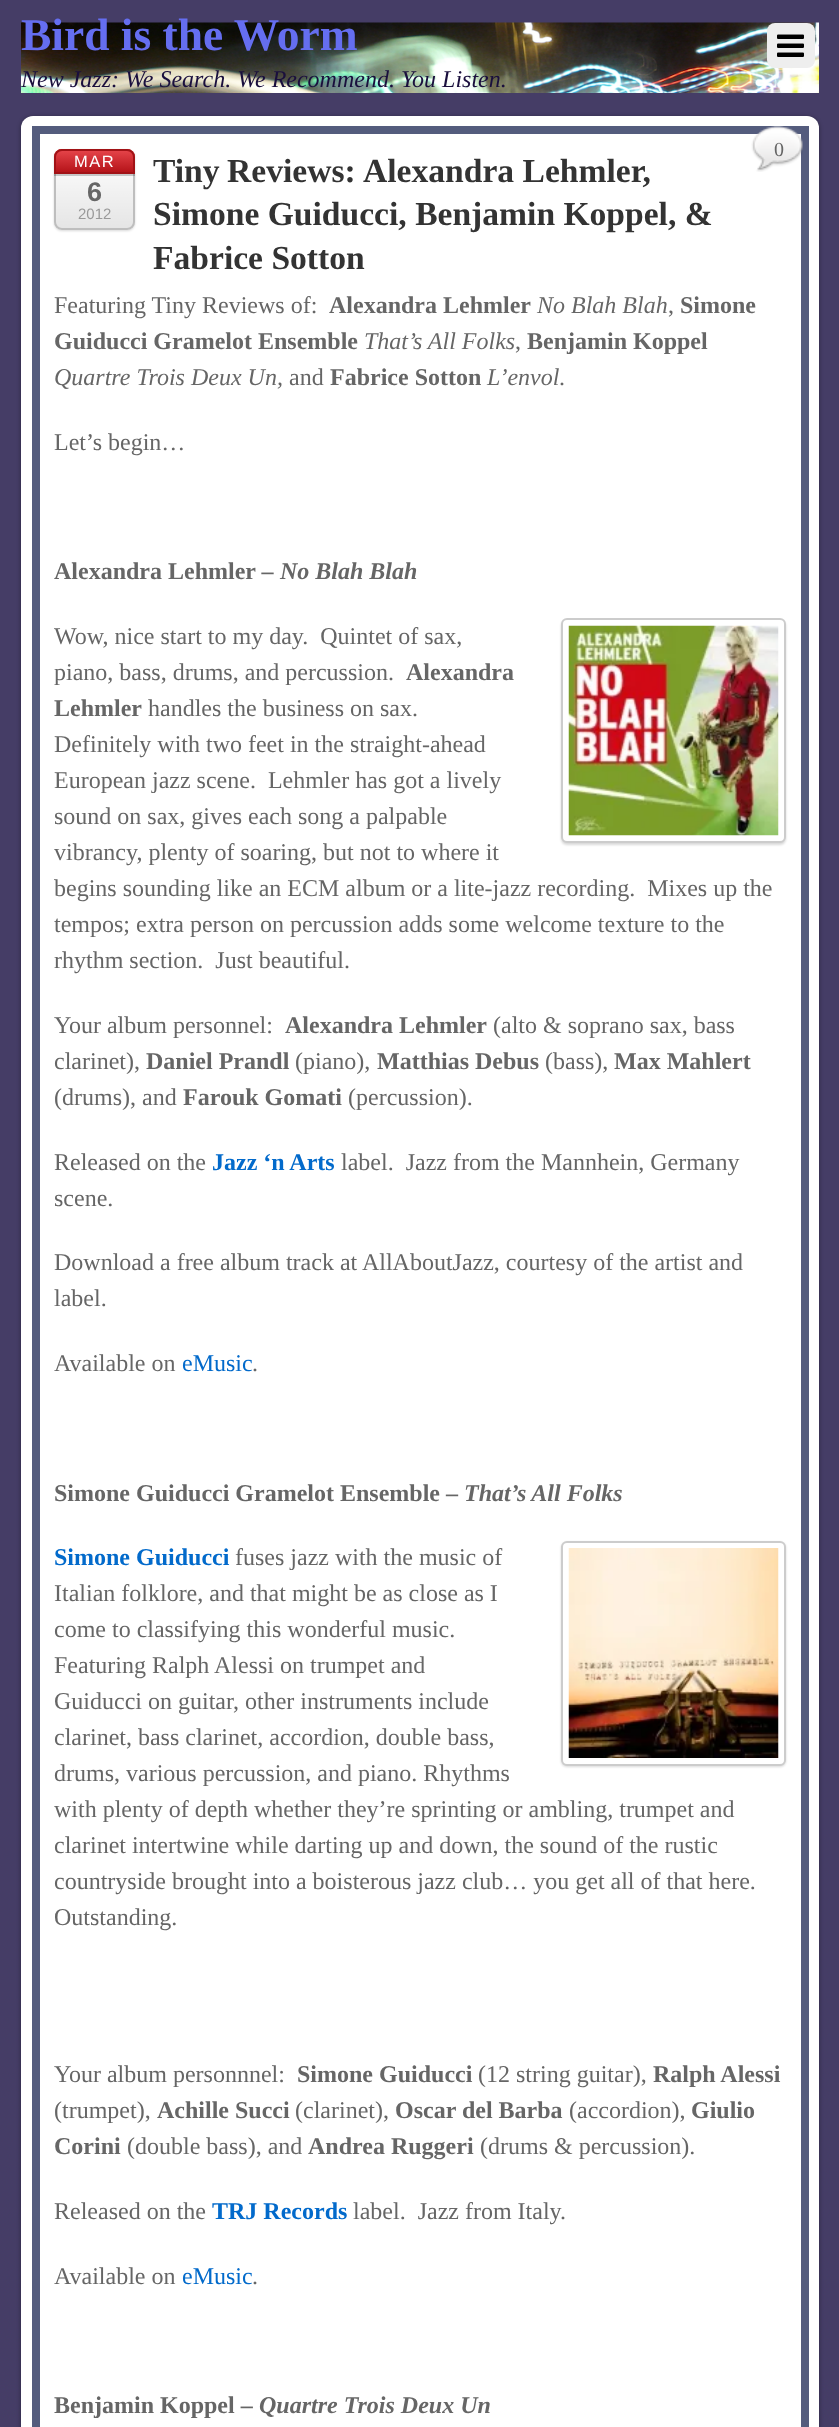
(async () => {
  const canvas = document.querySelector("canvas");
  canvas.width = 839;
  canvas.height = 2427;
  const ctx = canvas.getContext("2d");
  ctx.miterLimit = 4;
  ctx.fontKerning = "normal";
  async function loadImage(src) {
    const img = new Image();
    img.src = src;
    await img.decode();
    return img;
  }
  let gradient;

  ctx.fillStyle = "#453d66";
  ctx.fillRect(0, 0, 839, 2427);
  ctx.drawImage(await loadImage("img/1.png"), 21, 22, 798, 71);
  ctx.fillStyle = "#eeeeee";
  ctx.beginPath();
  ctx.roundRect(767, 23, 48, 45, 8);
  ctx.fill();
  ctx.drawImage(await loadImage("img/2.png"), 777, 34, 27, 23);
  ctx.fillStyle = "rgba(0, 0, 0, 0.4)";
  ctx.filter = "blur(2px)";
  ctx.beginPath();
  ctx.roundRect(21, 117, 798, 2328, 12);
  ctx.fill();
  ctx.filter = "none";
  ctx.fillStyle = "#ffffff";
  ctx.beginPath();
  ctx.roundRect(21, 116, 798, 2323, 12);
  ctx.fill();
  ctx.strokeStyle = "#545c7d";
  ctx.lineWidth = 8;
  ctx.strokeRect(36, 130, 769, 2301);
  ctx.drawImage(await loadImage("img/3.png"), 751, 126, 52, 46);
  ctx.fillStyle = "rgba(0, 0, 0, 0.15)";
  ctx.filter = "blur(1px)";
  ctx.beginPath();
  ctx.roundRect(54, 150, 81, 81, 8);
  ctx.fill();
  ctx.filter = "none";
  ctx.fillStyle = "#ffffff";
  ctx.beginPath();
  ctx.roundRect(54, 149, 81, 81, 8);
  ctx.fill();
  ctx.save();
  ctx.beginPath();
  ctx.roundRect(54, 149, 81, 81, 8);
  ctx.clip();
  gradient = ctx.createLinearGradient(95, 150, 95, 228);
  gradient.addColorStop(0, "rgba(0, 0, 0, 0)");
  gradient.addColorStop(1, "rgba(0, 0, 0, 0.1)");
  ctx.fillStyle = gradient;
  ctx.fillRect(54, 174, 81, 54);
  ctx.restore();
  ctx.beginPath();
  ctx.roundRect(55, 150, 79, 79, 7);
  ctx.strokeStyle = "#bebebe";
  ctx.lineWidth = 2;
  ctx.stroke();
  ctx.fillStyle = "rgba(0, 0, 0, 0.2)";
  ctx.fillRect(54, 174, 81, 2);
  ctx.fillStyle = "#e0161d";
  ctx.beginPath();
  ctx.roundRect(54, 149, 81, 25, [8, 8, 0, 0]);
  ctx.fill();
  ctx.save();
  ctx.beginPath();
  ctx.roundRect(54, 149, 81, 25, [8, 8, 0, 0]);
  ctx.clip();
  gradient = ctx.createLinearGradient(95, 150, 95, 173);
  gradient.addColorStop(0, "rgba(255, 255, 255, 0.2)");
  gradient.addColorStop(1, "rgba(0, 0, 0, 0.2)");
  ctx.fillStyle = gradient;
  ctx.fillRect(54, 150, 81, 22);
  ctx.restore();
  ctx.beginPath();
  ctx.roundRect(55, 150, 79, 23, [7, 7, 0, 0]);
  ctx.strokeStyle = "#a11216";
  ctx.stroke();
  ctx.fillStyle = "rgba(0, 0, 0, 0.15)";
  ctx.filter = "blur(1px)";
  ctx.beginPath();
  ctx.roundRect(561, 620, 225, 225, 6);
  ctx.fill();
  ctx.filter = "none";
  ctx.fillStyle = "#ffffff";
  ctx.beginPath();
  ctx.roundRect(562, 619, 223, 223, 5);
  ctx.fill();
  ctx.strokeStyle = "#cccccc";
  ctx.stroke();
  ctx.drawImage(await loadImage("img/4.png"), 568, 625, 211, 211);
  ctx.fillStyle = "rgba(0, 0, 0, 0.15)";
  ctx.filter = "blur(1px)";
  ctx.beginPath();
  ctx.roundRect(561, 1542, 225, 225, 6);
  ctx.fill();
  ctx.filter = "none";
  ctx.fillStyle = "#ffffff";
  ctx.beginPath();
  ctx.roundRect(562, 1542, 223, 223, 5);
  ctx.fill();
  ctx.stroke();
  ctx.drawImage(await loadImage("img/5.png"), 568, 1548, 211, 210);
  ctx.font = "bold 45.5px Liberation Serif";
  ctx.fillStyle = "#656ef0";
  ctx.fillText("Bird is the Worm", 21, 50);
  ctx.font = "italic 24px Liberation Serif";
  ctx.fillStyle = "#1a0f3d";
  ctx.fillText("New Jazz: We Search. We Recommend. You Listen.", 21, 87);
  ctx.font = "20px Liberation Serif";
  ctx.fillStyle = "#666666";
  ctx.fillText("0", 774, 156);
  ctx.letterSpacing = "1.5px";
  ctx.font = "16.5px Liberation Sans";
  ctx.fillStyle = "#ffffff";
  ctx.fillText("MAR", 74, 167);
  ctx.letterSpacing = "0px";
  ctx.font = "bold 27px Liberation Sans";
  ctx.fillStyle = "#666666";
  ctx.fillText("6", 87, 201);
  ctx.font = "15px Liberation Sans";
  ctx.fillStyle = "#999999";
  ctx.fillText("2012", 78, 219);
  ctx.wordSpacing = "-1px";
  ctx.font = "bold 33.6px Liberation Serif";
  ctx.fillStyle = "#333333";
  ctx.fillText("Tiny Reviews:", 153, 182);
  ctx.wordSpacing = "0px";
  for (const [text, x, y] of [
    ["Alexandra Lehmler,", 363, 182],
    ["Simone Guiducci, Benjamin Koppel, &", 153, 225],
    ["Fabrice Sotton", 153, 269],
  ]) {
    ctx.fillText(text, x, y);
  }
  ctx.font = "24px Liberation Serif";
  ctx.fillStyle = "#666666";
  ctx.fillText("Featuring Tiny Reviews of:", 54, 313);
  ctx.font = "bold 24px Liberation Serif";
  ctx.fillText("Alexandra Lehmler", 329, 313);
  ctx.font = "italic 24px Liberation Serif";
  ctx.fillText("No Blah Blah", 537, 313);
  ctx.font = "24px Liberation Serif";
  ctx.fillText(",", 668, 313);
  ctx.font = "bold 24px Liberation Serif";
  ctx.fillText("Simone", 680, 313);
  ctx.fillText("Guiducci Gramelot Ensemble", 54, 349);
  ctx.font = "italic 24px Liberation Serif";
  ctx.fillText("That’s All Folks", 364, 349);
  ctx.font = "24px Liberation Serif";
  ctx.fillText(",", 515, 349);
  ctx.font = "bold 24px Liberation Serif";
  ctx.fillText("Benjamin Koppel", 527, 349);
  ctx.font = "italic 24px Liberation Serif";
  ctx.fillText("Quartre Trois Deux Un,", 54, 385);
  ctx.font = "24px Liberation Serif";
  ctx.fillText("and", 289, 385);
  ctx.font = "bold 24px Liberation Serif";
  ctx.fillText("Fabrice Sotton", 330, 385);
  ctx.font = "italic 24px Liberation Serif";
  ctx.fillText("L’envol", 487, 385);
  ctx.font = "24px Liberation Serif";
  ctx.fillText(".", 559, 385);
  ctx.fillText("Let’s begin…", 54, 450);
  ctx.font = "bold 24px Liberation Serif";
  ctx.fillText("Alexandra Lehmler –", 54, 579);
  ctx.font = "italic bold 24px Liberation Serif";
  ctx.fillText("No Blah Blah", 280, 579);
  ctx.font = "24px Liberation Serif";
  ctx.fillText("Wow, nice start to my day.  Quintet of sax,", 54, 644);
  ctx.fillText("piano, bass, drums, and percussion.", 54, 680);
  ctx.font = "bold 24px Liberation Serif";
  ctx.fillText("Alexandra", 406, 680);
  ctx.fillText("Lehmler", 54, 716);
  ctx.font = "24px Liberation Serif";
  for (const [text, x, y] of [
    ["handles the business on sax.", 148, 716],
    ["Definitely with two feet in the straight-ahead", 54, 752],
    ["European jazz scene.  Lehmler has got a lively", 54, 788],
    ["sound on sax, gives each song a palpable", 54, 824],
    ["vibrancy, plenty of soaring, but not to where it", 54, 860],
    ["begins sounding like an ECM album or a lite-jazz recording.  Mixes up the", 54, 896],
    ["tempos; extra person on percussion adds some welcome texture to the", 54, 932],
    ["rhythm section.  Just beautiful.", 54, 968],
    ["Your album personnel:", 54, 1033],
  ]) {
    ctx.fillText(text, x, y);
  }
  ctx.font = "bold 24px Liberation Serif";
  ctx.fillText("Alexandra Lehmler", 285, 1033);
  ctx.font = "24px Liberation Serif";
  ctx.fillText("(alto & soprano sax, bass", 493, 1033);
  ctx.fillText("clarinet),", 54, 1069);
  ctx.font = "bold 24px Liberation Serif";
  ctx.fillText("Daniel Prandl", 146, 1069);
  ctx.font = "24px Liberation Serif";
  ctx.fillText("(piano),", 295, 1069);
  ctx.font = "bold 24px Liberation Serif";
  ctx.fillText("Matthias Debus", 377, 1069);
  ctx.font = "24px Liberation Serif";
  ctx.fillText("(bass),", 545, 1069);
  ctx.font = "bold 24px Liberation Serif";
  ctx.fillText("Max Mahlert", 614, 1069);
  ctx.font = "24px Liberation Serif";
  ctx.fillText("(drums), and", 54, 1105);
  ctx.font = "bold 24px Liberation Serif";
  ctx.fillText("Farouk Gomati", 183, 1105);
  ctx.font = "24px Liberation Serif";
  ctx.fillText("(percussion).", 348, 1105);
  ctx.fillText("Released on the", 54, 1170);
  ctx.font = "bold 24px Liberation Serif";
  ctx.fillStyle = "#026acb";
  ctx.fillText("Jazz ‘n Arts", 212, 1170);
  ctx.font = "24px Liberation Serif";
  ctx.fillStyle = "#666666";
  for (const [text, x, y] of [
    ["label.  Jazz from the Mannhein, Germany", 341, 1170],
    ["scene.", 54, 1206],
    ["Download a free album track at AllAboutJazz, courtesy of the artist and", 54, 1270],
    ["label.", 54, 1306],
    ["Available on", 54, 1371],
  ]) {
    ctx.fillText(text, x, y);
  }
  ctx.fillStyle = "#026acb";
  ctx.fillText("eMusic", 182, 1371);
  ctx.fillStyle = "#666666";
  ctx.fillText(".", 252, 1371);
  ctx.font = "bold 24px Liberation Serif";
  ctx.fillText("Simone Guiducci Gramelot Ensemble –", 54, 1501);
  ctx.font = "italic bold 24px Liberation Serif";
  ctx.fillText("That’s All Folks", 464, 1501);
  ctx.font = "bold 24px Liberation Serif";
  ctx.fillStyle = "#026acb";
  ctx.fillText("Simone Guiducci", 54, 1565);
  ctx.font = "24px Liberation Serif";
  ctx.fillStyle = "#666666";
  for (const [text, x, y] of [
    ["fuses jazz with the music of", 235, 1565],
    ["Italian folklore, and that might be as close as I", 54, 1601],
    ["come to classifying this wonderful music.", 54, 1637],
    ["Featuring Ralph Alessi on trumpet and", 54, 1673],
    ["Guiducci on guitar, other instruments include", 54, 1709],
    ["clarinet, bass clarinet, accordion, double bass,", 54, 1745],
    ["drums, various percussion, and piano. Rhythms", 54, 1781],
    ["with plenty of depth whether they’re sprinting or ambling, trumpet and", 54, 1817],
    ["clarinet intertwine while darting up and down, the sound of the rustic", 54, 1853],
    ["countryside brought into a boisterous jazz club… you get all of that here.", 54, 1889],
    ["Outstanding.", 54, 1925],
    ["Your album personnnel:", 54, 2082],
  ]) {
    ctx.fillText(text, x, y);
  }
  ctx.font = "bold 24px Liberation Serif";
  ctx.fillText("Simone Guiducci", 297, 2082);
  ctx.font = "24px Liberation Serif";
  ctx.fillText("(12 string guitar),", 478, 2082);
  ctx.font = "bold 24px Liberation Serif";
  ctx.fillText("Ralph Alessi", 653, 2082);
  ctx.font = "24px Liberation Serif";
  ctx.fillText("(trumpet),", 54, 2118);
  ctx.font = "bold 24px Liberation Serif";
  ctx.fillText("Achille Succi", 157, 2118);
  ctx.font = "24px Liberation Serif";
  ctx.fillText("(clarinet),", 295, 2118);
  ctx.font = "bold 24px Liberation Serif";
  ctx.fillText("Oscar del Barba", 395, 2118);
  ctx.font = "24px Liberation Serif";
  ctx.fillText("(accordion),", 569, 2118);
  ctx.font = "bold 24px Liberation Serif";
  ctx.fillText("Giulio", 691, 2118);
  ctx.fillText("Corini", 54, 2154);
  ctx.font = "24px Liberation Serif";
  ctx.fillText("(double bass), and", 127, 2154);
  ctx.font = "bold 24px Liberation Serif";
  ctx.fillText("Andrea Ruggeri", 308, 2154);
  ctx.font = "24px Liberation Serif";
  ctx.fillText("(drums & percussion).", 480, 2154);
  ctx.fillText("Released on the", 54, 2219);
  ctx.font = "bold 24px Liberation Serif";
  ctx.fillStyle = "#026acb";
  ctx.fillText("TRJ Records", 212, 2219);
  ctx.font = "24px Liberation Serif";
  ctx.fillStyle = "#666666";
  ctx.fillText("label.  Jazz from Italy.", 353, 2219);
  ctx.fillText("Available on", 54, 2284);
  ctx.fillStyle = "#026acb";
  ctx.fillText("eMusic", 182, 2284);
  ctx.fillStyle = "#666666";
  ctx.fillText(".", 252, 2284);
  ctx.font = "bold 24px Liberation Serif";
  ctx.fillText("Benjamin Koppel –", 54, 2413);
  ctx.font = "italic bold 24px Liberation Serif";
  ctx.fillText("Quartre Trois Deux Un", 259, 2413);
})();
